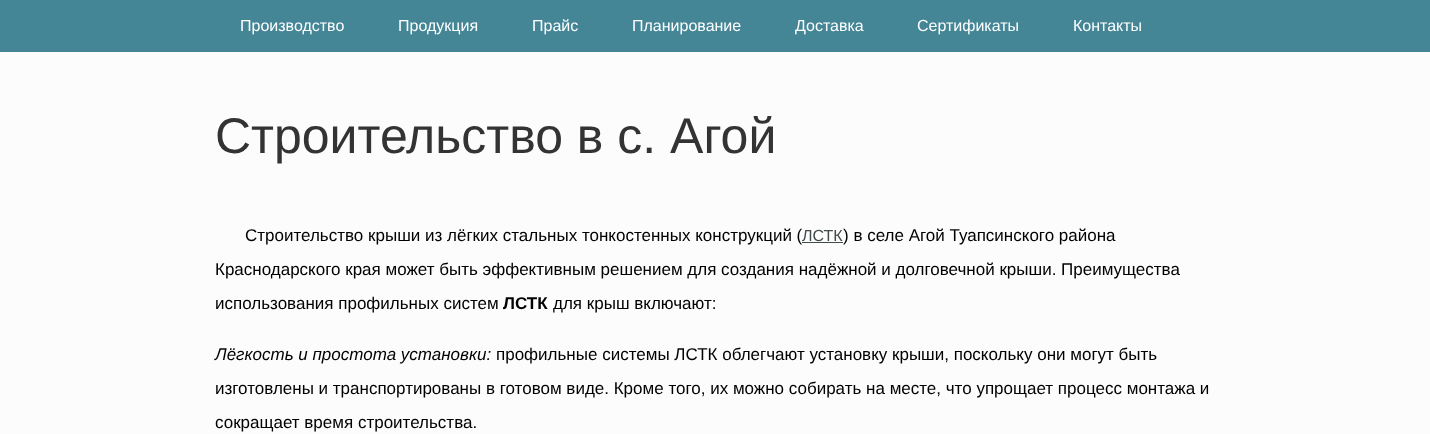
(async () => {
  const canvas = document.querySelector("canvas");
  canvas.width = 1430;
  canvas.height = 434;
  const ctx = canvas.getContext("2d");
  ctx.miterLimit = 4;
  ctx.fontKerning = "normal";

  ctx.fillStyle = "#fcfcfc";
  ctx.fillRect(0, 0, 1430, 434);
  ctx.fillStyle = "#448696";
  ctx.fillRect(0, 0, 1430, 52);
  ctx.font = "16px Liberation Sans";
  ctx.fillStyle = "#ffffff";
  for (const [text, x, y] of [
    ["Производство", 240, 31],
    ["Продукция", 398, 31],
    ["Прайс", 532, 31],
    ["Планирование", 632, 31],
    ["Доставка", 795, 31],
    ["Сертификаты", 917, 31],
    ["Контакты", 1073, 31],
  ]) {
    ctx.fillText(text, x, y);
  }
  ctx.font = "50px Liberation Sans";
  ctx.fillStyle = "#333333";
  ctx.fillText("Строительство в с. Агой", 215, 153);
  ctx.font = "17px Liberation Sans";
  ctx.fillStyle = "#000000";
  ctx.fillText("Строительство крыши из лёгких стальных тонкостенных конструкций (", 245, 241);
  ctx.font = "16px Liberation Sans";
  ctx.fillStyle = "#434b4d";
  ctx.fillText("ЛСТК", 802, 241);
  ctx.fillRect(802, 242, 41, 1);
  ctx.font = "17px Liberation Sans";
  ctx.fillStyle = "#000000";
  for (const [text, x, y] of [
    [") в селе Агой Туапсинского района", 843, 241],
    ["Краснодарского края может быть эффективным решением для создания надёжной и долговечной крыши. Преимущества", 215, 275],
    ["использования профильных систем", 215, 309],
  ]) {
    ctx.fillText(text, x, y);
  }
  ctx.font = "bold 17px Liberation Sans";
  ctx.fillText("ЛСТК", 503, 309);
  ctx.font = "17px Liberation Sans";
  ctx.fillText("для крыш включают:", 553, 309);
  ctx.font = "italic 17px Liberation Sans";
  ctx.fillText("Лёгкость и простота установки:", 215, 360);
  ctx.font = "17px Liberation Sans";
  for (const [text, x, y] of [
    ["профильные системы ЛСТК облегчают установку крыши, поскольку они могут быть", 496, 360],
    ["изготовлены и транспортированы в готовом виде. Кроме того, их можно собирать на месте, что упрощает процесс монтажа и", 215, 394],
    ["сокращает время строительства.", 215, 428],
  ]) {
    ctx.fillText(text, x, y);
  }
})();
